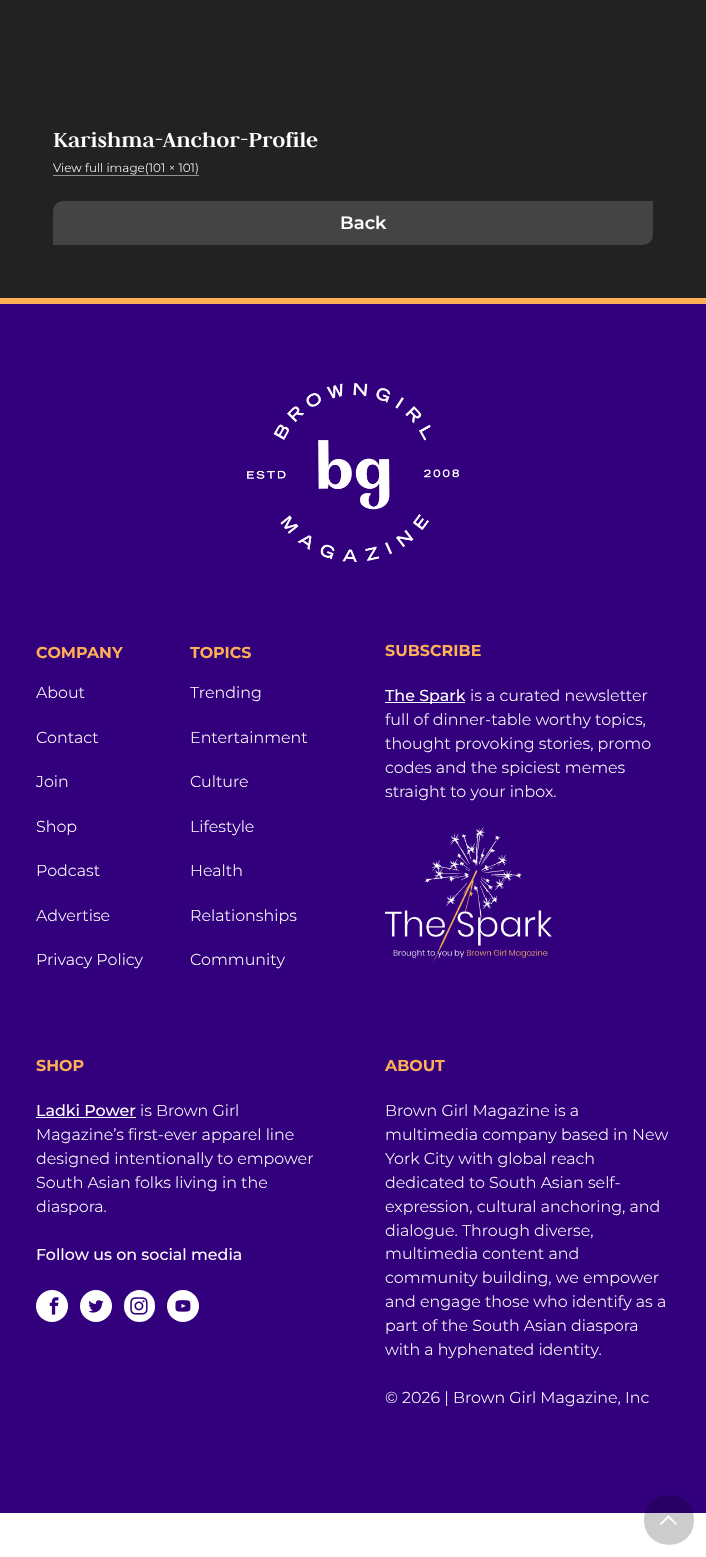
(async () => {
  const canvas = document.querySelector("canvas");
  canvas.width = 706;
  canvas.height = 1557;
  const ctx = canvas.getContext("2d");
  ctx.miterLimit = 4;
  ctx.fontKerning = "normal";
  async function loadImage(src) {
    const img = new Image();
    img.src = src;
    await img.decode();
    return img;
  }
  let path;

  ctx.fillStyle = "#ffffff";
  ctx.fillRect(0, 0, 706, 1557);
  ctx.fillStyle = "#222222";
  ctx.fillRect(0, 0, 706, 298);
  ctx.fillStyle = "#919191";
  ctx.fillRect(53, 175, 146, 1);
  ctx.fillStyle = "#444444";
  ctx.beginPath();
  ctx.roundRect(53, 201, 600, 44, [10, 0, 10, 0]);
  ctx.fill();
  ctx.fillStyle = "#32007d";
  ctx.fillRect(0, 304, 706, 1209);
  ctx.fillStyle = "#ffaf55";
  ctx.fillRect(0, 298, 706, 6);
  ctx.drawImage(await loadImage("img/1.png"), 247, 383, 212, 179);
  ctx.fillStyle = "#ffffff";
  ctx.fillRect(385, 702, 80, 1);
  ctx.drawImage(await loadImage("img/2.png"), 385, 827, 167, 139);
  ctx.fillRect(36, 1117, 100, 1);
  ctx.beginPath();
  ctx.arc(52, 1306, 16, 0, Math.PI * 2);
  ctx.fill();
  ctx.drawImage(await loadImage("img/3.png"), 49, 1297, 10, 18);
  ctx.beginPath();
  ctx.arc(96, 1306, 16, 0, Math.PI * 2);
  ctx.fill();
  ctx.drawImage(await loadImage("img/4.png"), 88, 1300, 16, 13);
  ctx.beginPath();
  ctx.roundRect(124, 1290, 31, 32, 15.5);
  ctx.fill();
  ctx.drawImage(await loadImage("img/5.png"), 130, 1297, 18, 18);
  ctx.beginPath();
  ctx.arc(183, 1306, 16, 0, Math.PI * 2);
  ctx.fill();
  ctx.drawImage(await loadImage("img/6.png"), 175, 1300, 16, 12);
  ctx.fillStyle = "rgba(0, 0, 0, 0.2)";
  path = new Path2D("M694 1520C694 1553 644 1553 644 1520C644 1487 694 1487 694 1520Z");
  ctx.fill(path);
  ctx.fillStyle = "#ffffff";
  path = new Path2D("M677 1524L676 1525L668.5 1518L661 1525L659.5 1524L668.5 1515Z");
  ctx.fill(path);
  ctx.font = "bold 24px Judson";
  ctx.fillText("Karishma-Anchor-Profile", 53, 147);
  ctx.font = "300 12px Montserrat";
  ctx.fillText("View full image(101 × 101)", 53, 172);
  ctx.font = "600 18px Montserrat";
  ctx.fillText("Back", 340, 229);
  ctx.font = "bold 15.9px Montserrat";
  ctx.fillStyle = "#ffaf55";
  ctx.fillText("COMPANY", 36, 658);
  ctx.font = "300 15.9px Montserrat";
  ctx.fillStyle = "#ffffff";
  for (const [text, x, y] of [
    ["About", 36, 698],
    ["Contact", 36, 743],
    ["Join", 36, 787],
    ["Shop", 36, 832],
    ["Podcast", 36, 876],
    ["Advertise", 36, 921],
    ["Privacy Policy", 36, 965],
  ]) {
    ctx.fillText(text, x, y);
  }
  ctx.font = "bold 15.9px Montserrat";
  ctx.fillStyle = "#ffaf55";
  ctx.fillText("TOPICS", 190, 658);
  ctx.font = "300 15.9px Montserrat";
  ctx.fillStyle = "#ffffff";
  for (const [text, x, y] of [
    ["Trending", 190, 698],
    ["Entertainment", 190, 743],
    ["Culture", 190, 787],
    ["Lifestyle", 190, 832],
    ["Health", 190, 876],
    ["Relationships", 190, 921],
    ["Community", 190, 965],
  ]) {
    ctx.fillText(text, x, y);
  }
  ctx.font = "bold 15.9px Montserrat";
  ctx.fillStyle = "#ffaf55";
  ctx.fillText("SUBSCRIBE", 385, 656);
  ctx.font = "500 15.9px Montserrat";
  ctx.fillStyle = "#ffffff";
  ctx.fillText("The Spark", 385, 701);
  ctx.font = "300 15.9px Montserrat";
  for (const [text, x, y] of [
    ["is a curated newsletter", 470, 701],
    ["full of dinner-table worthy topics,", 385, 725],
    ["thought provoking stories, promo", 385, 749],
    ["codes and the spiciest memes", 385, 773],
    ["straight to your inbox.", 385, 797],
  ]) {
    ctx.fillText(text, x, y);
  }
  ctx.font = "bold 15.9px Montserrat";
  ctx.fillStyle = "#ffaf55";
  ctx.fillText("SHOP", 36, 1071);
  ctx.font = "500 15.9px Montserrat";
  ctx.fillStyle = "#ffffff";
  ctx.fillText("Ladki Power", 36, 1116);
  ctx.font = "300 15.9px Montserrat";
  for (const [text, x, y] of [
    ["is Brown Girl", 140, 1116],
    ["Magazine’s first-ever apparel line", 36, 1140],
    ["designed intentionally to empower", 36, 1164],
    ["South Asian folks living in the", 36, 1188],
    ["diaspora.", 36, 1212],
  ]) {
    ctx.fillText(text, x, y);
  }
  ctx.font = "500 15.9px Montserrat";
  ctx.fillText("Follow us on social media", 36, 1260);
  ctx.font = "bold 15.9px Montserrat";
  ctx.fillStyle = "#ffaf55";
  ctx.fillText("ABOUT", 385, 1071);
  ctx.font = "300 15.9px Montserrat";
  ctx.fillStyle = "#ffffff";
  for (const [text, x, y] of [
    ["Brown Girl Magazine is a", 385, 1116],
    ["multimedia company based in New", 385, 1140],
    ["York City with global reach", 385, 1164],
    ["dedicated to South Asian self-", 385, 1188],
    ["expression, cultural anchoring, and", 385, 1212],
    ["dialogue. Through diverse,", 385, 1236],
    ["multimedia content and", 385, 1259],
    ["community building, we empower", 385, 1283],
    ["and engage those who identify as a", 385, 1307],
    ["part of the South Asian diaspora", 385, 1331],
    ["with a hyphenated identity.", 385, 1355],
    ["© 2026 | Brown Girl Magazine, Inc", 385, 1403],
  ]) {
    ctx.fillText(text, x, y);
  }
})();
